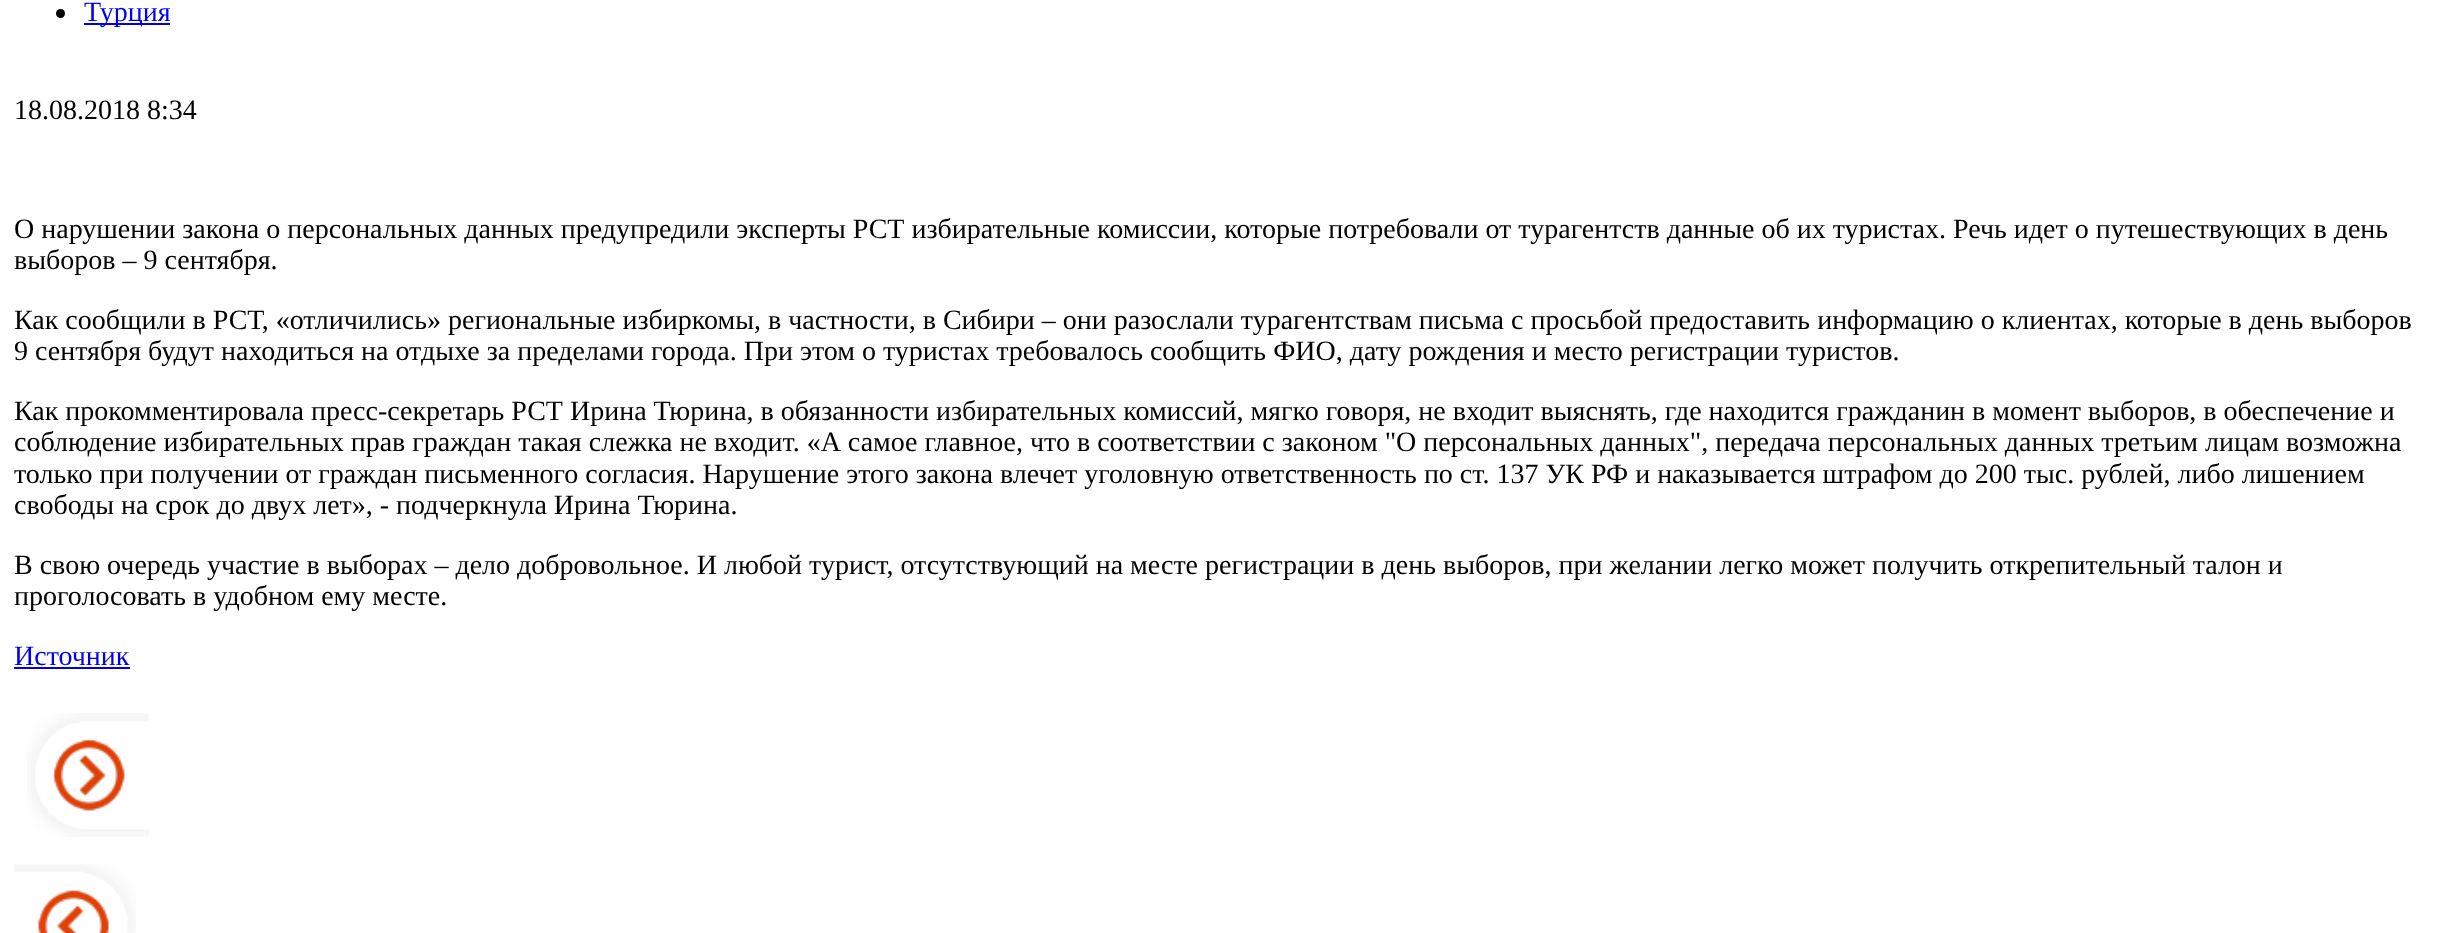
(async () => {
  const canvas = document.querySelector("canvas");
  canvas.width = 2444;
  canvas.height = 933;
  const ctx = canvas.getContext("2d");
  ctx.miterLimit = 4;
  ctx.fontKerning = "normal";
  async function loadImage(src) {
    const img = new Image();
    img.src = src;
    await img.decode();
    return img;
  }

  ctx.fillStyle = "#ffffff";
  ctx.fillRect(0, 0, 2444, 933);
  ctx.fillStyle = "#000000";
  ctx.beginPath();
  ctx.arc(60.5, 13.5, 4.5, 0, Math.PI * 2);
  ctx.fill();
  ctx.fillStyle = "#0000ee";
  ctx.fillRect(84, 23, 86, 2);
  ctx.fillRect(14, 667, 116, 2);
  ctx.drawImage(await loadImage("img/1.png"), 27, 713, 122, 124);
  ctx.drawImage(await loadImage("img/2.png"), 14, 864, 122, 69);
  ctx.font = "28px Liberation Serif";
  ctx.fillText("Турция", 84, 21);
  ctx.fillStyle = "#000000";
  for (const [text, x, y] of [
    ["18.08.2018 8:34", 14, 119],
    ["О нарушении закона о персональных данных предупредили эксперты РСТ избирательные комиссии, которые потребовали от турагентств данные об их туристах. Речь идет о путешествующих в день", 14, 238],
    ["выборов – 9 сентября.", 14, 269],
    ["Как сообщили в РСТ, «отличились» региональные избиркомы, в частности, в Сибири – они разослали турагентствам письма с просьбой предоставить информацию о клиентах, которые в день выборов", 14, 329],
    ["9 сентября будут находиться на отдыхе за пределами города. При этом о туристах требовалось сообщить ФИО, дату рождения и место регистрации туристов.", 14, 360],
    ["Как прокомментировала пресс-секретарь РСТ Ирина Тюрина, в обязанности избирательных комиссий, мягко говоря, не входит выяснять, где находится гражданин в момент выборов, в обеспечение и", 14, 420],
    ["соблюдение избирательных прав граждан такая слежка не входит. «А самое главное, что в соответствии с законом \"О персональных данных\", передача персональных данных третьим лицам возможна", 14, 451],
    ["только при получении от граждан письменного согласия. Нарушение этого закона влечет уголовную ответственность по ст. 137 УК РФ и наказывается штрафом до 200 тыс. рублей, либо лишением", 14, 483],
    ["свободы на срок до двух лет», - подчеркнула Ирина Тюрина.", 14, 514],
    ["В свою очередь участие в выборах – дело добровольное. И любой турист, отсутствующий на месте регистрации в день выборов, при желании легко может получить открепительный талон и", 14, 574],
    ["проголосовать в удобном ему месте.", 14, 605],
  ]) {
    ctx.fillText(text, x, y);
  }
  ctx.fillStyle = "#0000ee";
  ctx.fillText("Источник", 14, 665);
})();
